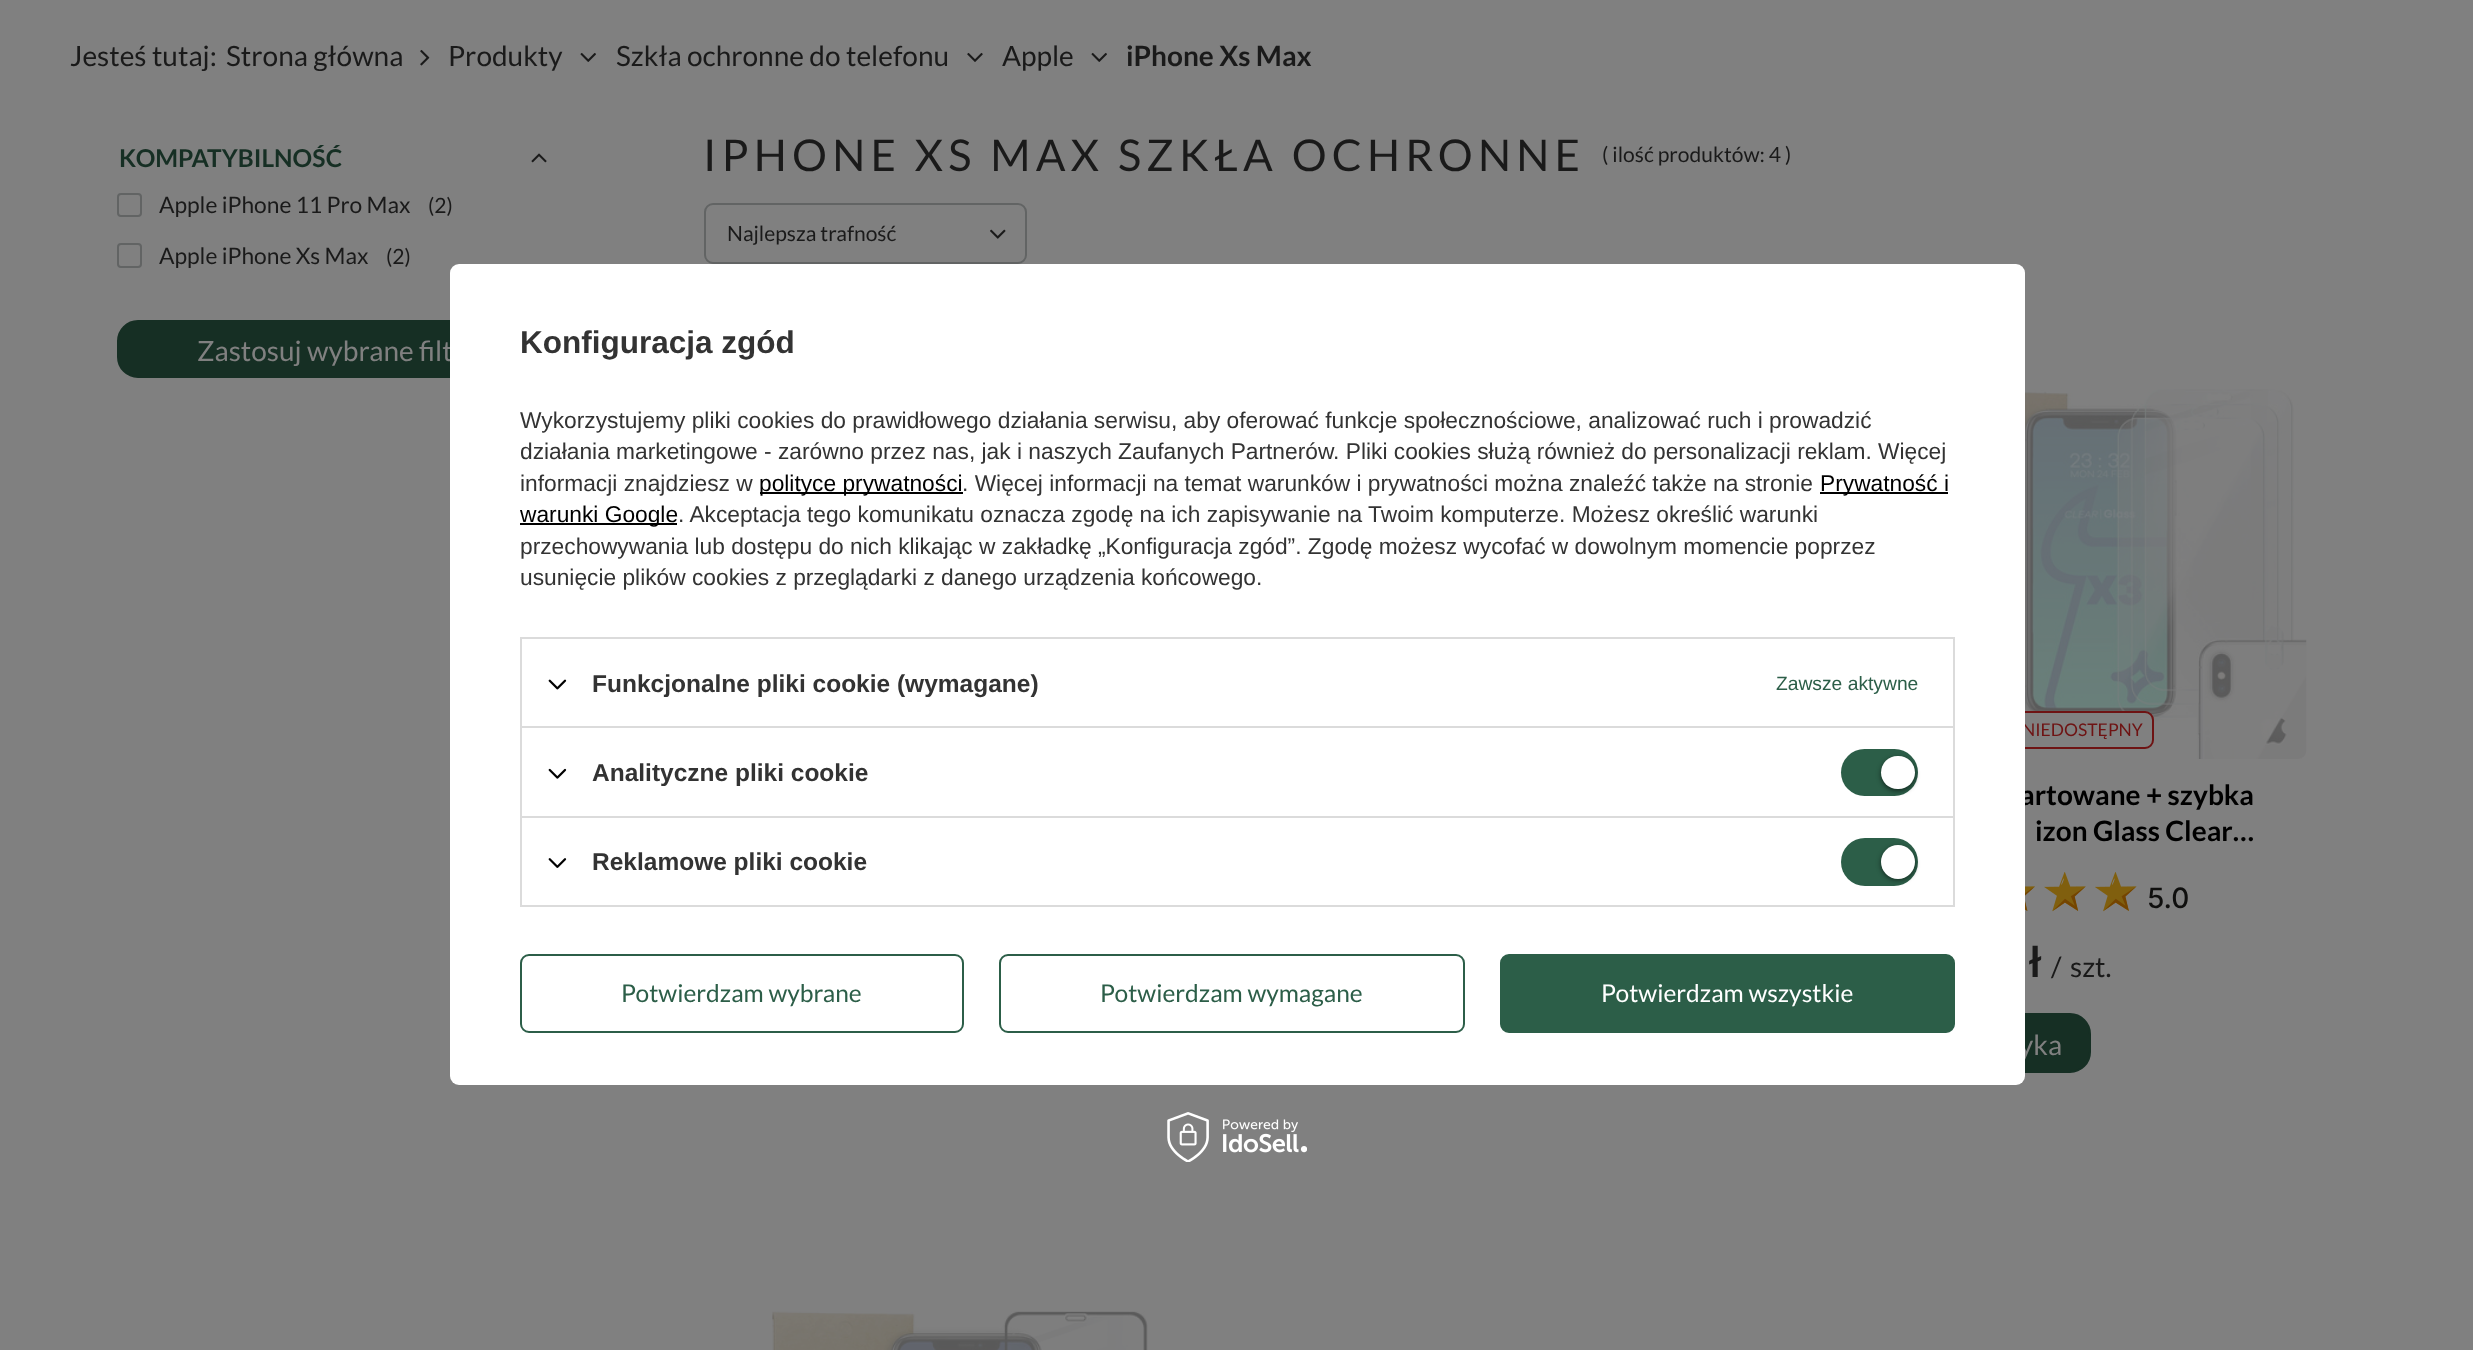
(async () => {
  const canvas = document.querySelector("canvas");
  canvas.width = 2473;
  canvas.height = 1350;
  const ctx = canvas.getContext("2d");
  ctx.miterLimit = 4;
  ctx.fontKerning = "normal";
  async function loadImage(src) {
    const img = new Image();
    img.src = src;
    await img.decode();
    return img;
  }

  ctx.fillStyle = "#808080";
  ctx.fillRect(0, 0, 2473, 1350);
  ctx.drawImage(await loadImage("img/1.png"), 420, 49, 10, 17);
  ctx.drawImage(await loadImage("img/2.png"), 580, 52, 16, 10);
  ctx.drawImage(await loadImage("img/3.png"), 967, 52, 16, 10);
  ctx.drawImage(await loadImage("img/2.png"), 1091, 52, 16, 10);
  ctx.drawImage(await loadImage("img/4.png"), 531, 153, 16, 10);
  ctx.beginPath();
  ctx.roundRect(118, 194, 23, 22, 3);
  ctx.strokeStyle = "#626464";
  ctx.lineWidth = 2;
  ctx.stroke();
  ctx.beginPath();
  ctx.roundRect(118, 244, 23, 23, 3);
  ctx.stroke();
  ctx.fillStyle = "#162f24";
  ctx.beginPath();
  ctx.roundRect(118, 321, 439, 56, 20);
  ctx.fill();
  ctx.strokeStyle = "#162f24";
  ctx.stroke();
  ctx.beginPath();
  ctx.roundRect(705, 204, 321, 59, 8);
  ctx.strokeStyle = "#626464";
  ctx.stroke();
  ctx.drawImage(await loadImage("img/5.png"), 990, 229, 16, 10);
  ctx.drawImage(await loadImage("img/6.png"), 2025, 389, 282, 370);
  ctx.fillStyle = "#808080";
  ctx.beginPath();
  ctx.roundRect(1905, 712, 248, 36, 8);
  ctx.fill();
  ctx.strokeStyle = "#6e1313";
  ctx.stroke();
  ctx.drawImage(await loadImage("img/7.png"), 2025, 886, 10, 25);
  ctx.drawImage(await loadImage("img/8.png"), 2044, 872, 42, 40);
  ctx.drawImage(await loadImage("img/9.png"), 2095, 872, 42, 40);
  ctx.fillStyle = "#162f24";
  ctx.beginPath();
  ctx.roundRect(1895, 1014, 195, 58, 20);
  ctx.fill();
  ctx.strokeStyle = "#162f24";
  ctx.stroke();
  ctx.drawImage(await loadImage("img/10.png"), 772, 1311, 376, 39);
  ctx.drawImage(await loadImage("img/14.png"), 1167, 1112, 140, 50);
  ctx.font = "28px Lato";
  ctx.fillStyle = "#1a1a1a";
  for (const [text, x, y] of [
    ["Jesteś tutaj:", 70, 66],
    ["Strona główna", 226, 66],
    ["Produkty", 448, 66],
    ["Szkła ochronne do telefonu", 616, 66],
    ["Apple", 1002, 66],
  ]) {
    ctx.fillText(text, x, y);
  }
  ctx.font = "bold 28px Lato";
  ctx.fillText("iPhone Xs Max", 1126, 66);
  ctx.font = "bold 24.5px Lato";
  ctx.fillStyle = "#162f24";
  ctx.fillText("KOMPATYBILNOŚĆ", 119, 167);
  ctx.font = "22.75px Lato";
  ctx.fillStyle = "#1a1a1a";
  ctx.fillText("Apple iPhone 11 Pro Max", 159, 213);
  ctx.font = "21px Lato";
  ctx.fillText("(2)", 428, 213);
  ctx.font = "22.75px Lato";
  ctx.fillText("Apple iPhone Xs Max", 159, 264);
  ctx.font = "21px Lato";
  ctx.fillText("(2)", 386, 264);
  ctx.font = "28px Lato";
  ctx.fillStyle = "#808080";
  ctx.fillText("Zastosuj wybrane filt", 197, 361);
  ctx.letterSpacing = "5.25px";
  ctx.font = "43.75px Lato";
  ctx.fillStyle = "#1a1a1a";
  ctx.fillText("IPHONE XS MAX SZKŁA OCHRONNE", 703, 171);
  ctx.letterSpacing = "0px";
  ctx.font = "21px Lato";
  ctx.fillText("( ilość produktów: 4 )", 1602, 162);
  ctx.fillText("Najlepsza trafność", 727, 241);
  ctx.font = "17.5px Lato";
  ctx.fillStyle = "#6e1313";
  ctx.fillText("NIEDOSTĘPNY", 2022, 736);
  ctx.font = "bold 28px Lato";
  ctx.fillStyle = "#000000";
  ctx.fillText("artowane + szybka", 2020, 805);
  ctx.fillText("izon Glass Clear…", 2035, 841);
  ctx.font = "500 28px Inter";
  ctx.fillStyle = "#0f0f0e";
  ctx.fillText("5.0", 2147, 908);
  ctx.font = "bold 42px Lato";
  ctx.fillStyle = "#1a1a1a";
  ctx.fillText("ł", 2028, 977);
  ctx.font = "28px Lato";
  ctx.fillText("/", 2051, 977);
  ctx.fillText("szt.", 2070, 977);
  ctx.fillStyle = "#808080";
  ctx.fillText("yka", 2019, 1055);
  ctx.fillStyle = "#ffffff";
  ctx.beginPath();
  ctx.roundRect(450, 264, 1575, 821, 9);
  ctx.fill();
  ctx.font = "bold 31.5px Liberation Sans";
  ctx.fillStyle = "#333333";
  ctx.fillText("Konfiguracja zgód", 520, 353);
  ctx.font = "22.75px Liberation Sans";
  for (const [text, x, y] of [
    ["Wykorzystujemy pliki cookies do prawidłowego działania serwisu, aby oferować funkcje społecznościowe, analizować ruch i prowadzić", 520, 428],
    ["działania marketingowe - zarówno przez nas, jak i naszych Zaufanych Partnerów. Pliki cookies służą również do personalizacji reklam. Więcej", 520, 459],
    ["informacji znajdziesz w", 520, 491],
  ]) {
    ctx.fillText(text, x, y);
  }
  ctx.fillStyle = "#000000";
  ctx.fillRect(760, 492, 203, 2);
  ctx.fillText("polityce prywatności", 759, 491);
  ctx.fillStyle = "#333333";
  ctx.fillText(". Więcej informacji na temat warunków i prywatności można znaleźć także na stronie", 962, 491);
  ctx.fillStyle = "#000000";
  ctx.fillRect(1820, 492, 128, 2);
  ctx.fillText("Prywatność i", 1820, 491);
  ctx.fillRect(520, 523, 157, 2);
  ctx.fillText("warunki Google", 520, 522);
  ctx.fillStyle = "#333333";
  for (const [text, x, y] of [
    [". Akceptacja tego komunikatu oznacza zgodę na ich zapisywanie na Twoim komputerze. Możesz określić warunki", 678, 522],
    ["przechowywania lub dostępu do nich klikając w zakładkę „Konfiguracja zgód”. Zgodę możesz wycofać w dowolnym momencie poprzez", 520, 554],
    ["usunięcie plików cookies z przeglądarki z danego urządzenia końcowego.", 520, 585],
  ]) {
    ctx.fillText(text, x, y);
  }
  for (const [x, y, w, h, color] of [
    [520, 637, 1435, 2, "#dbdbdb"],
    [1953, 637, 2, 89, "#dbdbdb"],
    [520, 637, 2, 89, "#dbdbdb"],
  ]) {
    ctx.fillStyle = color;
    ctx.fillRect(x, y, w, h);
  }
  ctx.drawImage(await loadImage("img/11.png"), 548, 679, 19, 11);
  ctx.font = "bold 24.5px Liberation Sans";
  ctx.fillStyle = "#333333";
  ctx.fillText("Funkcjonalne pliki cookie (wymagane)", 592, 692);
  ctx.font = "19.25px Liberation Sans";
  ctx.fillStyle = "#2c5e48";
  ctx.fillText("Zawsze aktywne", 1776, 690);
  for (const [x, y, w, h, color] of [
    [520, 726, 1435, 2, "#dbdbdb"],
    [1953, 726, 2, 90, "#dbdbdb"],
    [520, 726, 2, 90, "#dbdbdb"],
  ]) {
    ctx.fillStyle = color;
    ctx.fillRect(x, y, w, h);
  }
  ctx.drawImage(await loadImage("img/12.png"), 548, 768, 19, 11);
  ctx.font = "bold 24.5px Liberation Sans";
  ctx.fillStyle = "#333333";
  ctx.fillText("Analityczne pliki cookie", 592, 781);
  ctx.fillStyle = "#2c5e48";
  ctx.beginPath();
  ctx.roundRect(1841, 749, 77, 47, 23.5);
  ctx.fill();
  ctx.fillStyle = "rgba(0, 0, 0, 0.56)";
  ctx.filter = "blur(2.5px)";
  ctx.beginPath();
  ctx.roundRect(1881, 758, 34, 33, 16.5);
  ctx.fill();
  ctx.filter = "none";
  ctx.fillStyle = "#ffffff";
  ctx.beginPath();
  ctx.roundRect(1881, 756, 34, 33, 16.5);
  ctx.fill();
  ctx.strokeStyle = "#dbdbdb";
  ctx.strokeRect(521, 817, 1433, 89);
  ctx.drawImage(await loadImage("img/13.png"), 548, 858, 19, 10);
  ctx.fillStyle = "#333333";
  ctx.fillText("Reklamowe pliki cookie", 592, 870);
  ctx.fillStyle = "#2c5e48";
  ctx.beginPath();
  ctx.roundRect(1841, 838, 77, 48, 24);
  ctx.fill();
  ctx.fillStyle = "rgba(0, 0, 0, 0.56)";
  ctx.filter = "blur(2.5px)";
  ctx.beginPath();
  ctx.roundRect(1881, 847, 34, 33, 16.5);
  ctx.fill();
  ctx.filter = "none";
  ctx.fillStyle = "#ffffff";
  ctx.beginPath();
  ctx.arc(1898, 862, 17, 0, Math.PI * 2);
  ctx.fill();
  ctx.beginPath();
  ctx.roundRect(521, 955, 442, 77, 8);
  ctx.strokeStyle = "#2c5e48";
  ctx.stroke();
  ctx.font = "24.5px Lato";
  ctx.fillStyle = "#2c5e48";
  ctx.fillText("Potwierdzam wybrane", 621, 1002);
  ctx.beginPath();
  ctx.roundRect(1000, 955, 464, 77, 8);
  ctx.stroke();
  ctx.fillText("Potwierdzam wymagane", 1100, 1002);
  ctx.beginPath();
  ctx.roundRect(1501, 955, 453, 77, 8);
  ctx.fill();
  ctx.stroke();
  ctx.fillStyle = "#ffffff";
  ctx.fillText("Potwierdzam wszystkie", 1601, 1002);
})();
